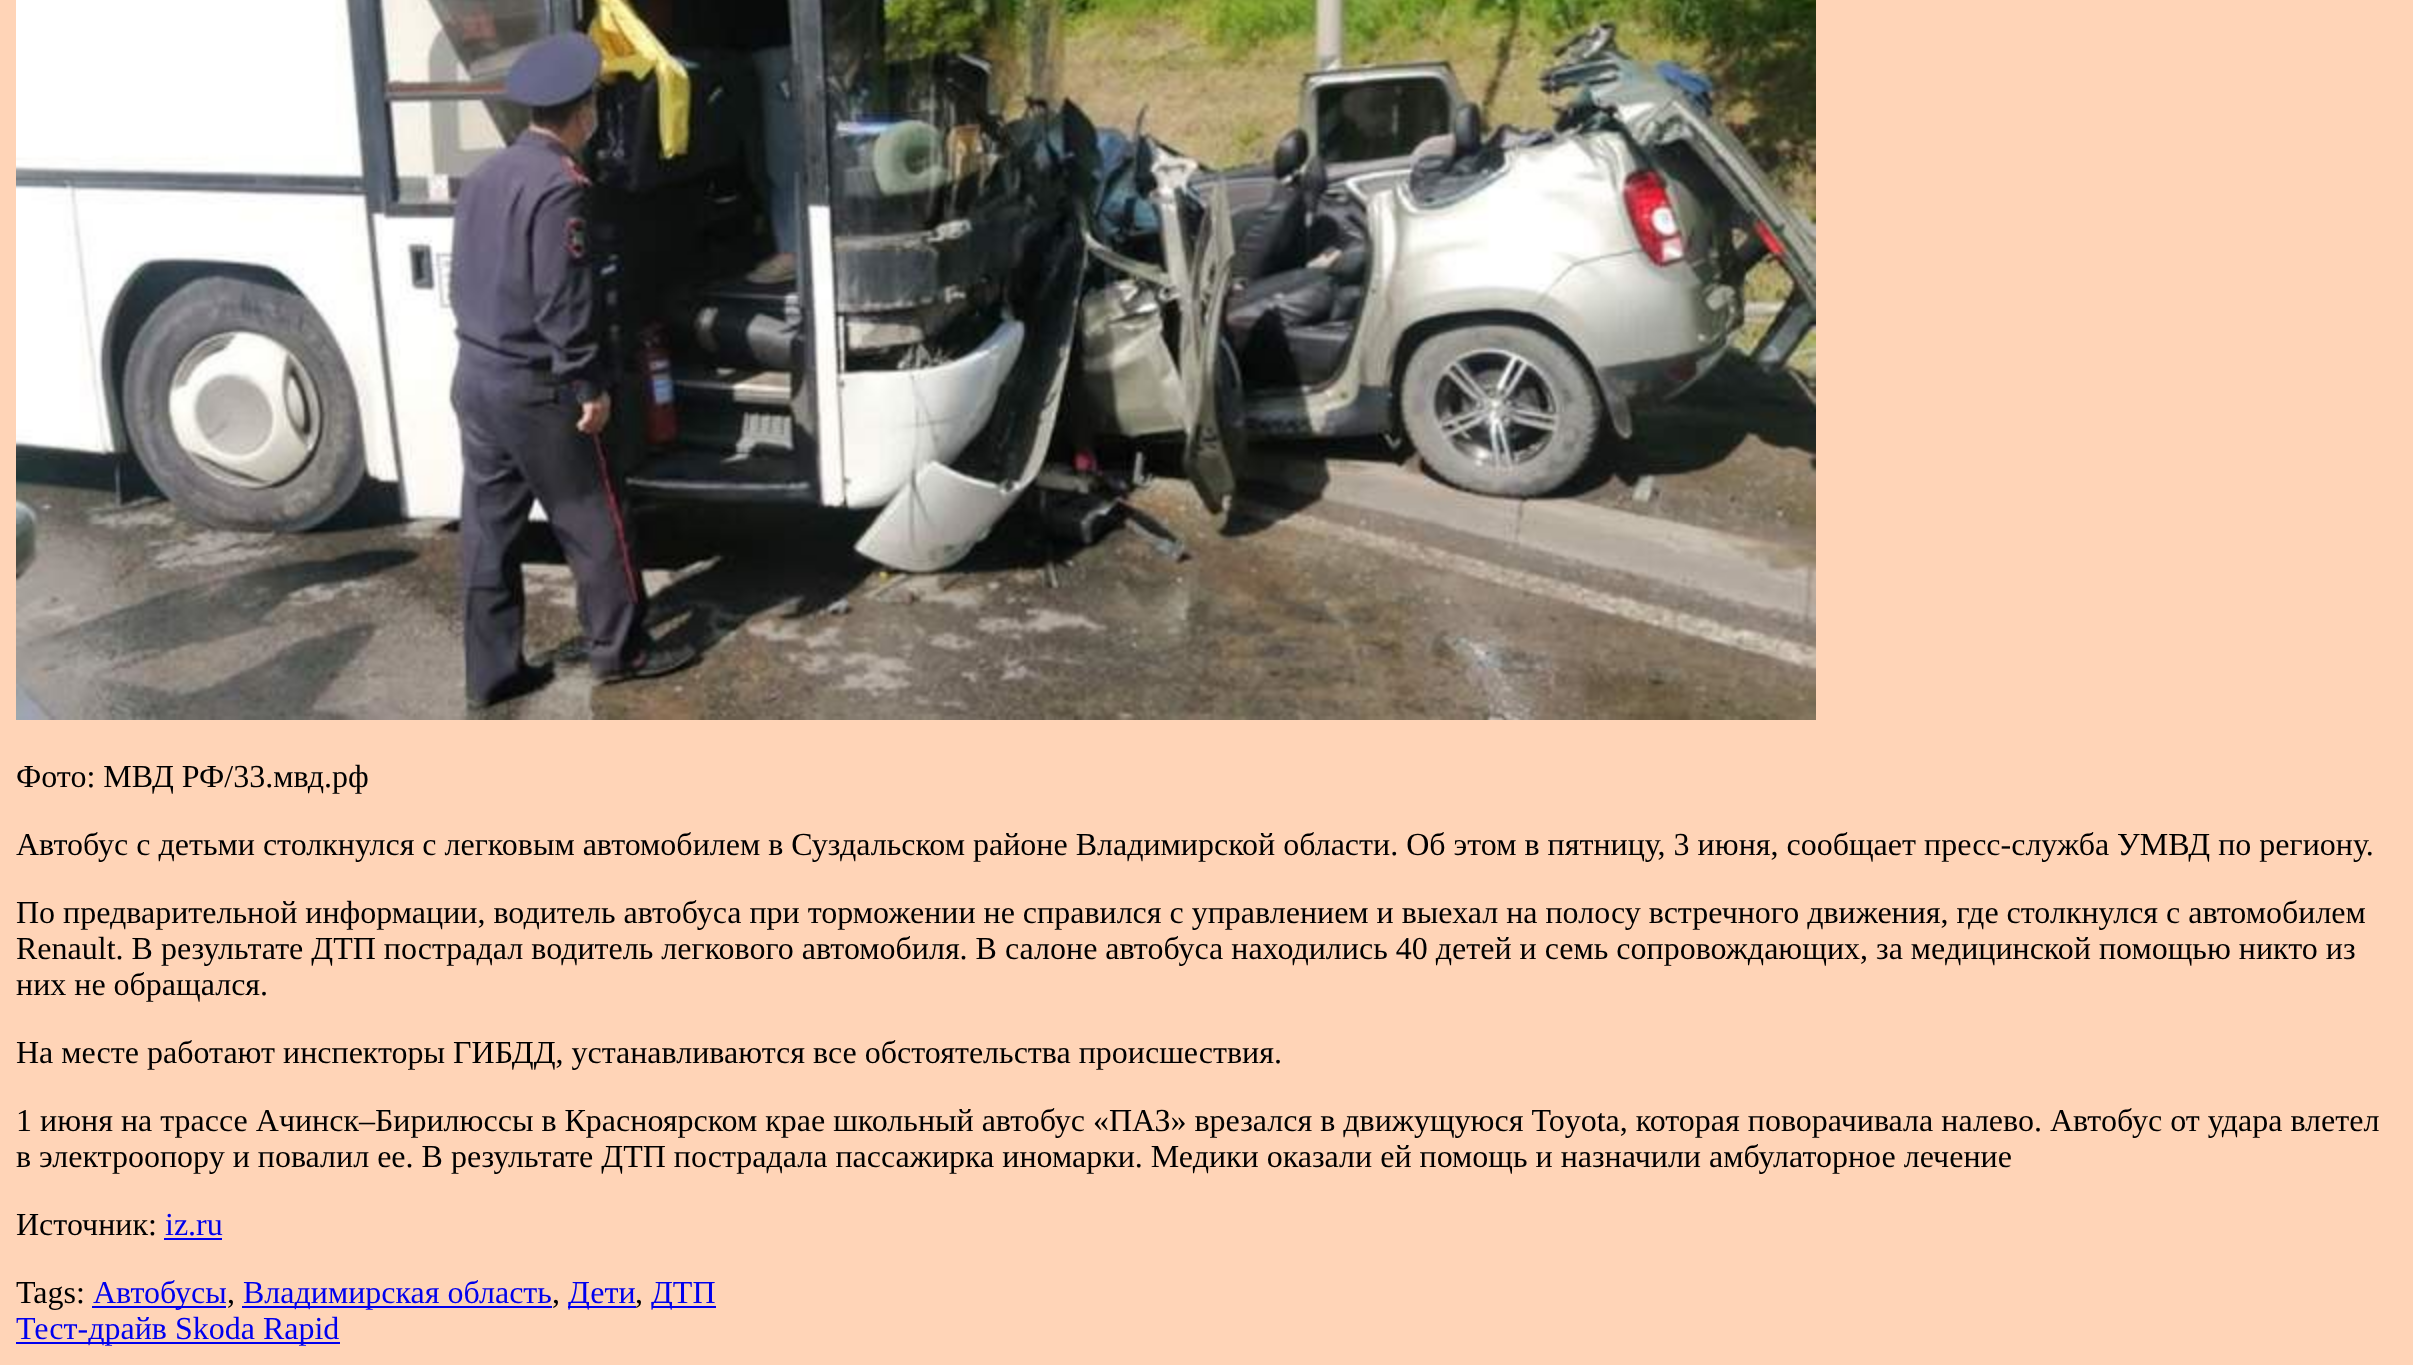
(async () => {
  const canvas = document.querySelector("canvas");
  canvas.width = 2413;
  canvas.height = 1365;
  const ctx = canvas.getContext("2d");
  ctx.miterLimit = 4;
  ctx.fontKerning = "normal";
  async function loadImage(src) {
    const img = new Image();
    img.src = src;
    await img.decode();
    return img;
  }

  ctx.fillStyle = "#ffd4b7";
  ctx.fillRect(0, 0, 2413, 1365);
  ctx.drawImage(await loadImage("img/1.png"), 16, 0, 1800, 720);
  for (const [x, y, w, h, color] of [
    [164, 1238, 58, 2, "#0000ee"],
    [92, 1306, 134, 2, "#0000ee"],
    [242, 1306, 310, 2, "#0000ee"],
    [568, 1306, 68, 2, "#0000ee"],
    [652, 1306, 64, 2, "#0000ee"],
    [16, 1342, 324, 2, "#0000ee"],
  ]) {
    ctx.fillStyle = color;
    ctx.fillRect(x, y, w, h);
  }
  ctx.font = "32px Liberation Serif";
  ctx.fillStyle = "#000000";
  for (const [text, x, y] of [
    ["Фото: МВД РФ/33.мвд.рф", 16, 787],
    ["Автобус с детьми столкнулся с легковым автомобилем в Суздальском районе Владимирской области. Об этом в пятницу, 3 июня, сообщает пресс-служба УМВД по региону.", 16, 855],
    ["По предварительной информации, водитель автобуса при торможении не справился с управлением и выехал на полосу встречного движения, где столкнулся с автомобилем", 16, 923],
    ["Renault. В результате ДТП пострадал водитель легкового автомобиля. В салоне автобуса находились 40 детей и семь сопровождающих, за медицинской помощью никто из", 16, 959],
    ["них не обращался.", 16, 995],
    ["На месте работают инспекторы ГИБДД, устанавливаются все обстоятельства происшествия.", 16, 1063],
    ["1 июня на трассе Ачинск–Бирилюссы в Красноярском крае школьный автобус «ПАЗ» врезался в движущуюся Toyota, которая поворачивала налево. Автобус от удара влетел", 16, 1131],
    ["в электроопору и повалил ее. В результате ДТП пострадала пассажирка иномарки. Медики оказали ей помощь и назначили амбулаторное лечение", 16, 1167],
    ["Источник:", 16, 1235],
  ]) {
    ctx.fillText(text, x, y);
  }
  ctx.fillStyle = "#0000ee";
  ctx.fillText("iz.ru", 165, 1235);
  ctx.fillStyle = "#000000";
  ctx.fillText("Tags:", 16, 1303);
  ctx.fillStyle = "#0000ee";
  ctx.fillText("Автобусы", 93, 1303);
  ctx.fillStyle = "#000000";
  ctx.fillText(",", 227, 1303);
  ctx.fillStyle = "#0000ee";
  ctx.fillText("Владимирская область", 243, 1303);
  ctx.fillStyle = "#000000";
  ctx.fillText(",", 552, 1303);
  ctx.fillStyle = "#0000ee";
  ctx.fillText("Дети", 568, 1303);
  ctx.fillStyle = "#000000";
  ctx.fillText(",", 635, 1303);
  ctx.fillStyle = "#0000ee";
  ctx.fillText("ДТП", 651, 1303);
  ctx.fillText("Тест-драйв Skoda Rapid", 16, 1339);
})();
